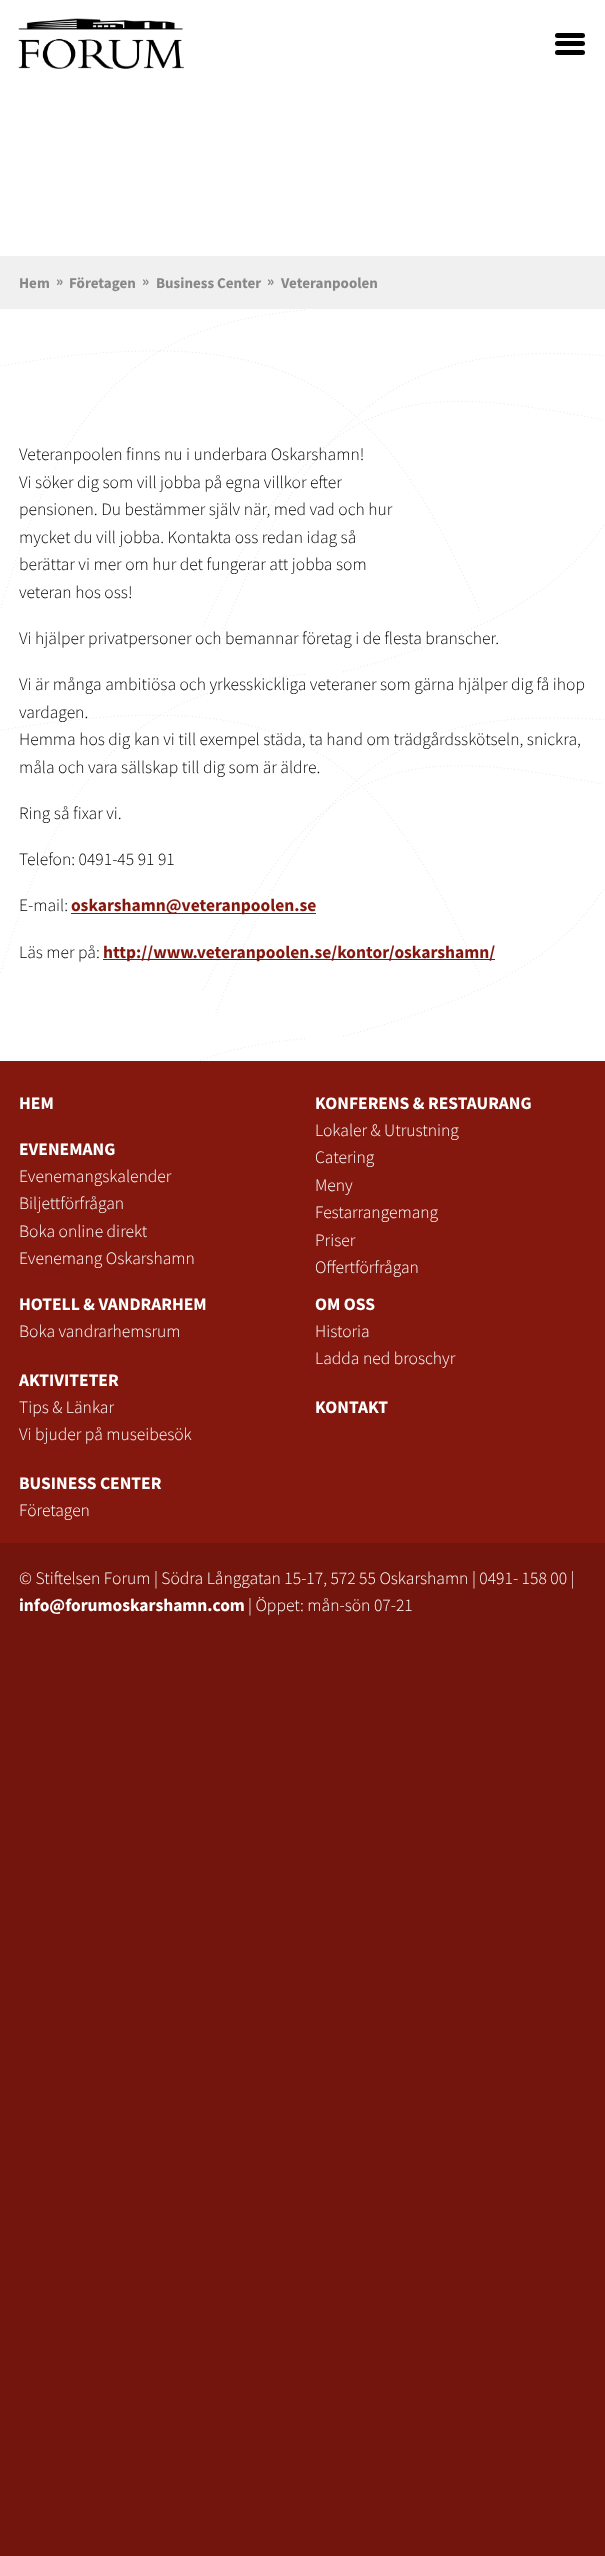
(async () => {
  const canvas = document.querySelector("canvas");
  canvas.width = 605;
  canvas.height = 2556;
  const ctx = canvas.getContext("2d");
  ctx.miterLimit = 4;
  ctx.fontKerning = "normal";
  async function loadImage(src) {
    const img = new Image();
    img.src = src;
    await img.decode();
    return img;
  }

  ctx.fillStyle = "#74150d";
  ctx.fillRect(0, 0, 605, 2556);
  ctx.fillStyle = "#ffffff";
  ctx.fillRect(0, 0, 605, 256);
  ctx.drawImage(await loadImage("img/1.png"), 18, 18, 166, 51);
  ctx.fillStyle = "#000000";
  ctx.beginPath();
  ctx.roundRect(555, 33, 30, 5, 2.5);
  ctx.fill();
  ctx.beginPath();
  ctx.roundRect(555, 41, 30, 5, 2.5);
  ctx.fill();
  ctx.beginPath();
  ctx.roundRect(555, 50, 30, 5, 2.5);
  ctx.fill();
  ctx.fillStyle = "#f0f0f0";
  ctx.fillRect(0, 256, 605, 53);
  ctx.fillStyle = "#ffffff";
  ctx.fillRect(0, 309, 605, 752);
  ctx.drawImage(await loadImage("img/2.png"), 0, 309, 604, 752);
  for (const [x, y, w, h, color] of [
    [71, 913, 245, 1, "#84180f"],
    [103, 959, 392, 1, "#84180f"],
    [0, 1061, 605, 482, "#84180f"],
  ]) {
    ctx.fillStyle = color;
    ctx.fillRect(x, y, w, h);
  }
  ctx.font = "bold 15px Source Sans Pro";
  ctx.fillStyle = "#888888";
  for (const [text, x, y] of [
    ["Hem", 19, 288],
    ["»", 56, 286],
    ["Företagen", 69, 288],
    ["»", 142, 286],
    ["Business Center", 156, 288],
    ["»", 267, 286],
    ["Veteranpoolen", 281, 288],
  ]) {
    ctx.fillText(text, x, y);
  }
  ctx.font = "300 17.5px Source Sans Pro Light";
  ctx.fillStyle = "#000000";
  for (const [text, x, y] of [
    ["Veteranpoolen finns nu i underbara Oskarshamn!", 19, 460],
    ["Vi söker dig som vill jobba på egna villkor efter", 19, 488],
    ["pensionen. Du bestämmer själv när, med vad och hur", 19, 515],
    ["mycket du vill jobba. Kontakta oss redan idag så", 19, 543],
    ["berättar vi mer om hur det fungerar att jobba som", 19, 570],
    ["veteran hos oss!", 19, 598],
    ["Vi hjälper privatpersoner och bemannar företag i de flesta branscher.", 19, 644],
    ["Vi är många ambitiösa och yrkesskickliga veteraner som gärna hjälper dig få ihop", 19, 690],
    ["vardagen.", 19, 718],
    ["Hemma hos dig kan vi till exempel städa, ta hand om trädgårdsskötseln, snickra,", 19, 745],
    ["måla och vara sällskap till dig som är äldre.", 19, 773],
    ["Ring så fixar vi.", 19, 819],
    ["Telefon: 0491-45 91 91", 19, 865],
    ["E-mail:", 19, 911],
  ]) {
    ctx.fillText(text, x, y);
  }
  ctx.font = "bold 17.5px Source Sans Pro";
  ctx.fillStyle = "#84180f";
  ctx.fillText("oskarshamn@veteranpoolen.se", 71, 911);
  ctx.font = "300 17.5px Source Sans Pro Light";
  ctx.fillStyle = "#000000";
  ctx.fillText("Läs mer på:", 19, 958);
  ctx.font = "bold 17.5px Source Sans Pro";
  ctx.fillStyle = "#84180f";
  ctx.fillText("http://www.veteranpoolen.se/kontor/oskarshamn/", 103, 958);
  ctx.fillStyle = "#ffffff";
  ctx.fillText("HEM", 19, 1109);
  ctx.fillText("EVENEMANG", 19, 1155);
  ctx.font = "300 17.5px Source Sans Pro Light";
  for (const [text, x, y] of [
    ["Evenemangskalender", 19, 1182],
    ["Biljettförfrågan", 19, 1209],
    ["Boka online direkt", 19, 1237],
    ["Evenemang Oskarshamn", 19, 1264],
  ]) {
    ctx.fillText(text, x, y);
  }
  ctx.font = "bold 17.5px Source Sans Pro";
  ctx.fillText("KONFERENS & RESTAURANG", 315, 1109);
  ctx.font = "300 17.5px Source Sans Pro Light";
  for (const [text, x, y] of [
    ["Lokaler & Utrustning", 315, 1136],
    ["Catering", 315, 1163],
    ["Meny", 315, 1191],
    ["Festarrangemang", 315, 1218],
    ["Priser", 315, 1246],
    ["Offertförfrågan", 315, 1273],
  ]) {
    ctx.fillText(text, x, y);
  }
  ctx.font = "bold 17.5px Source Sans Pro";
  ctx.fillText("HOTELL & VANDRARHEM", 19, 1310);
  ctx.font = "300 17.5px Source Sans Pro Light";
  ctx.fillText("Boka vandrarhemsrum", 19, 1337);
  ctx.font = "bold 17.5px Source Sans Pro";
  ctx.fillText("AKTIVITETER", 19, 1386);
  ctx.font = "300 17.5px Source Sans Pro Light";
  ctx.fillText("Tips & Länkar", 19, 1413);
  ctx.fillText("Vi bjuder på museibesök", 19, 1440);
  ctx.font = "bold 17.5px Source Sans Pro";
  ctx.fillText("BUSINESS CENTER", 19, 1489);
  ctx.font = "300 17.5px Source Sans Pro Light";
  ctx.fillText("Företagen", 19, 1516);
  ctx.font = "bold 17.5px Source Sans Pro";
  ctx.fillText("OM OSS", 315, 1310);
  ctx.font = "300 17.5px Source Sans Pro Light";
  ctx.fillText("Historia", 315, 1337);
  ctx.fillText("Ladda ned broschyr", 315, 1364);
  ctx.font = "bold 17.5px Source Sans Pro";
  ctx.fillText("KONTAKT", 315, 1413);
  ctx.font = "300 17.5px Source Sans Pro Light";
  ctx.fillText("© Stiftelsen Forum | Södra Långgatan 15-17, 572 55 Oskarshamn | 0491- 158 00 |", 19, 1584);
  ctx.font = "bold 17.5px Source Sans Pro";
  ctx.fillText("info@forumoskarshamn.com", 19, 1611);
  ctx.font = "300 17.5px Source Sans Pro Light";
  ctx.fillText("| Öppet: mån-sön 07-21", 248, 1611);
})();
